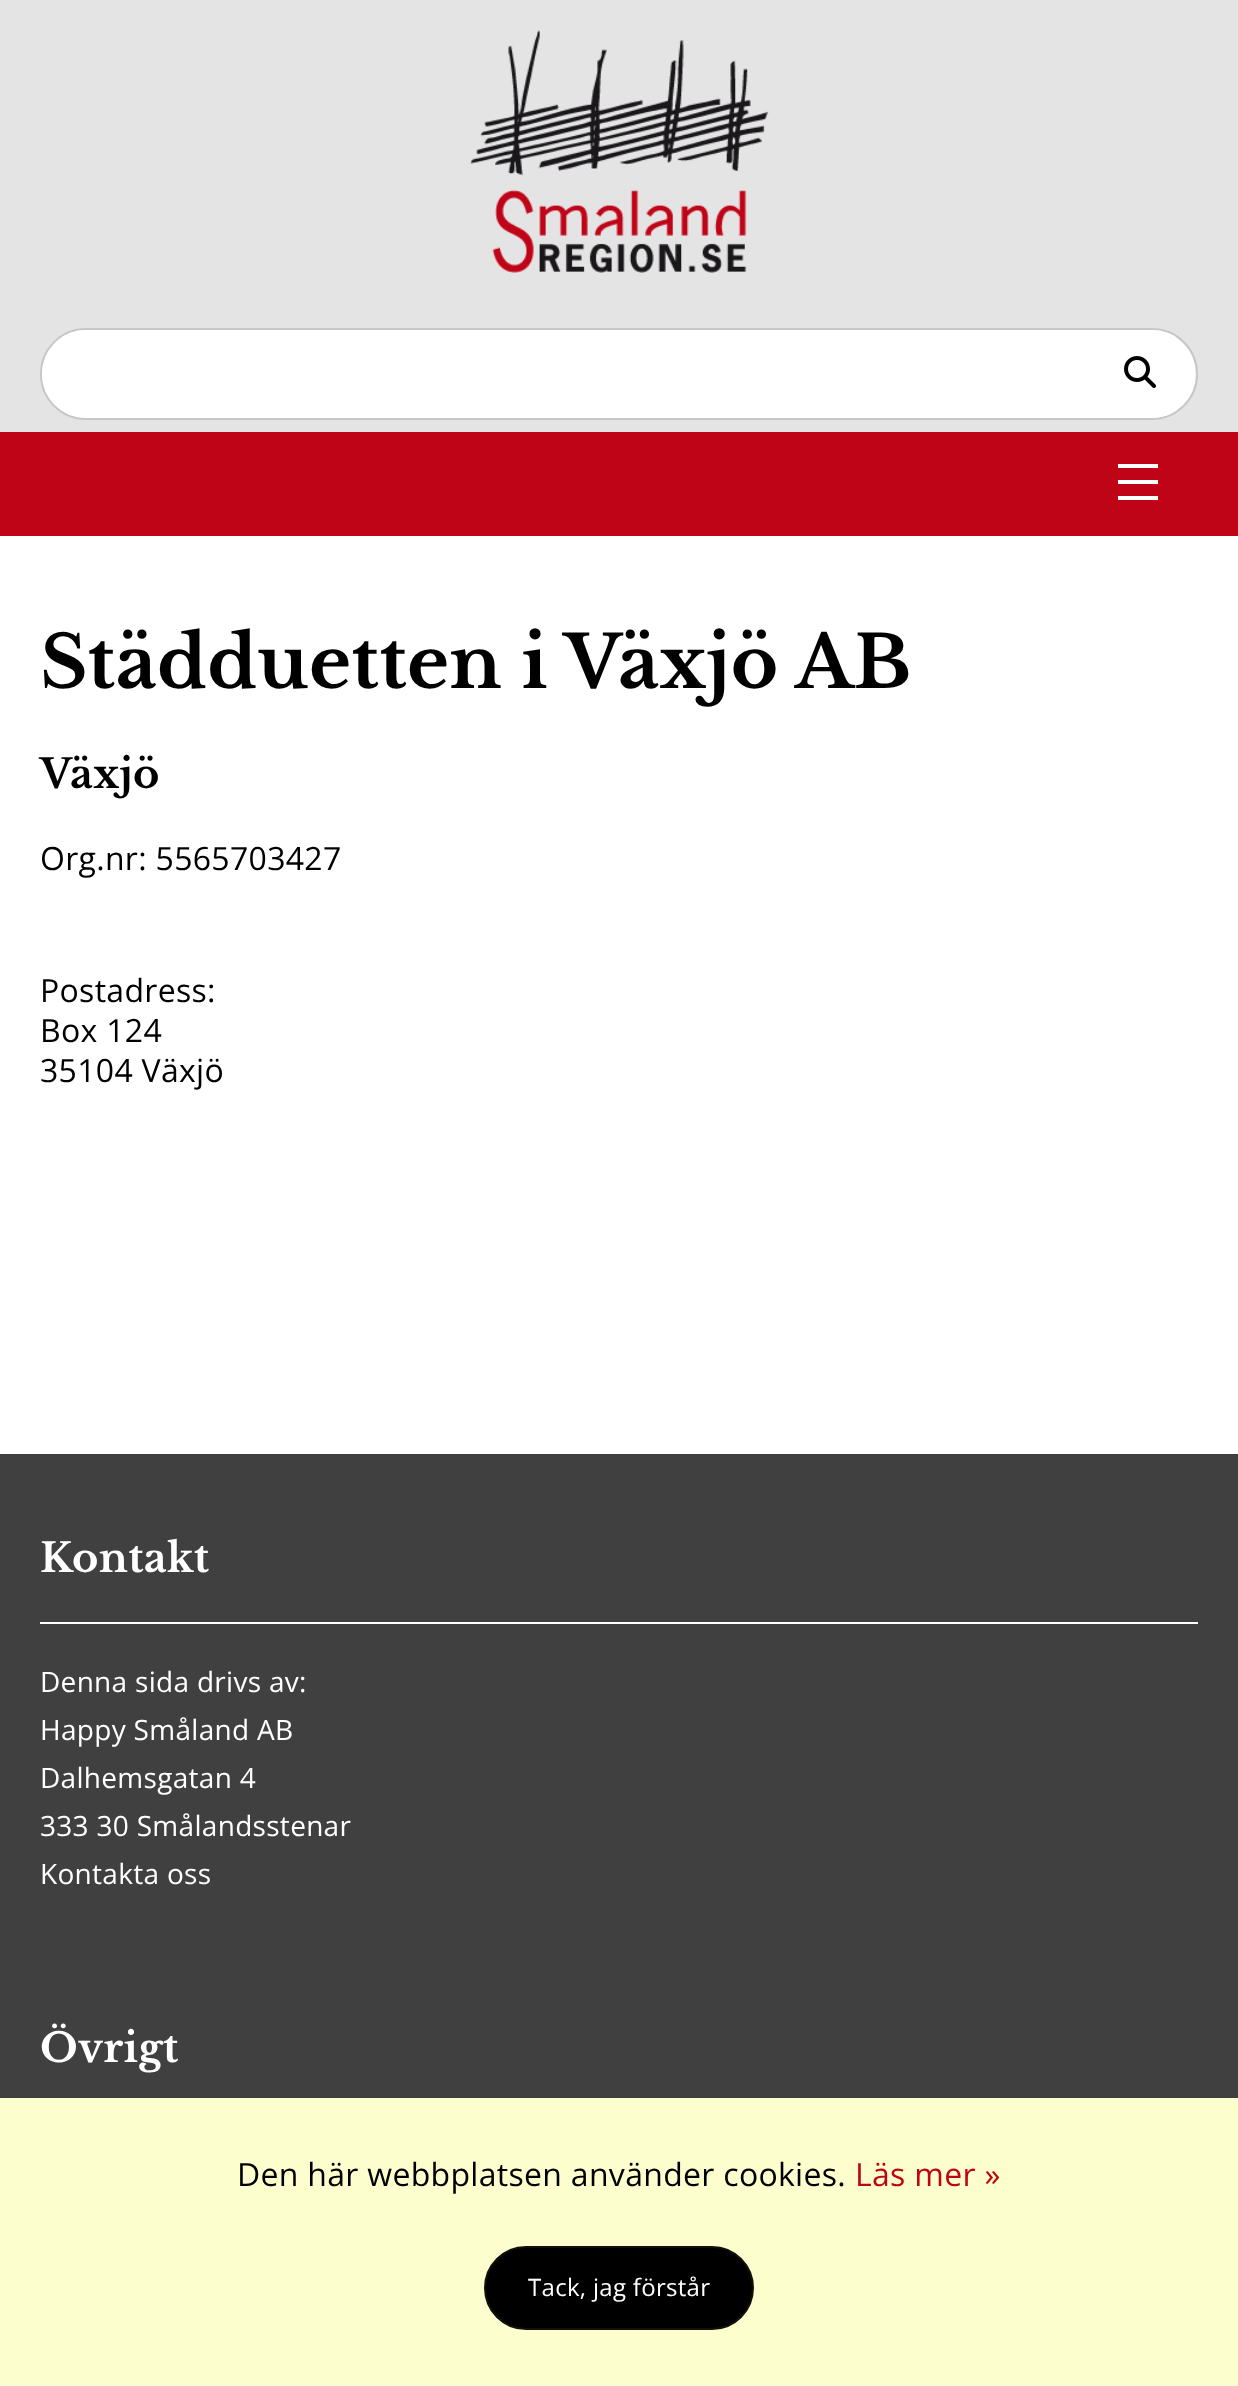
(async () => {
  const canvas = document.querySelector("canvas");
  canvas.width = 1238;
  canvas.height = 2386;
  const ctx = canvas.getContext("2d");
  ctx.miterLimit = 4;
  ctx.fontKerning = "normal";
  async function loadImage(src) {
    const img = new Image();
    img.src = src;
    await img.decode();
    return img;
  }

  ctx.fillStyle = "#ffffff";
  ctx.fillRect(0, 0, 1238, 2386);
  ctx.fillStyle = "#e4e4e4";
  ctx.fillRect(0, 0, 1238, 432);
  ctx.drawImage(await loadImage("img/1.png"), 470, 30, 299, 243);
  ctx.fillStyle = "#ffffff";
  ctx.beginPath();
  ctx.roundRect(41, 329, 1156, 90, 45);
  ctx.fill();
  ctx.strokeStyle = "#c7c7c7";
  ctx.lineWidth = 2;
  ctx.stroke();
  ctx.beginPath();
  ctx.roundRect(42, 330, 1062, 88, [44, 0, 0, 44]);
  ctx.fill();
  ctx.save();
  ctx.beginPath();
  ctx.roundRect(42, 330, 1154, 88, 44);
  ctx.clip();
  ctx.fillRect(1104, 330, 72, 88);
  ctx.restore();
  ctx.drawImage(await loadImage("img/2.png"), 1124, 356, 32, 32);
  for (const [x, y, w, h, color] of [
    [0, 432, 1238, 104, "#c00418"],
    [1118, 464, 40, 4, "#ffffff"],
    [1118, 480, 40, 4, "#ffffff"],
    [1118, 496, 40, 4, "#ffffff"],
    [0, 1454, 1238, 644, "#404040"],
    [40, 1622, 1158, 2, "#ffffff"],
    [0, 2098, 1238, 288, "#fcffcd"],
  ]) {
    ctx.fillStyle = color;
    ctx.fillRect(x, y, w, h);
  }
  ctx.fillStyle = "#000000";
  ctx.beginPath();
  ctx.roundRect(485, 2247, 268, 82, 41);
  ctx.fill();
  ctx.strokeStyle = "#12100b";
  ctx.stroke();
  ctx.letterSpacing = "0.3px";
  ctx.font = "bold 72px Libre Baskerville";
  ctx.fillText("Städduetten i Växjö AB", 40, 688);
  ctx.font = "bold 40px Libre Baskerville";
  ctx.fillText("Växjö", 40, 788);
  ctx.font = "32px Open Sans";
  for (const [text, x, y] of [
    ["Org.nr: 5565703427", 40, 870],
    ["Postadress:", 40, 1002],
    ["Box 124", 40, 1042],
    ["35104 Växjö", 40, 1082],
  ]) {
    ctx.fillText(text, x, y);
  }
  ctx.font = "bold 40px Libre Baskerville";
  ctx.fillStyle = "#ffffff";
  ctx.fillText("Kontakt", 40, 1572);
  ctx.font = "28px Open Sans";
  for (const [text, x, y] of [
    ["Denna sida drivs av:", 40, 1692],
    ["Happy Småland AB", 40, 1740],
    ["Dalhemsgatan 4", 40, 1788],
    ["333 30 Smålandsstenar", 40, 1836],
    ["Kontakta oss", 40, 1884],
  ]) {
    ctx.fillText(text, x, y);
  }
  ctx.font = "bold 40px Libre Baskerville";
  ctx.fillText("Övrigt", 40, 2062);
  ctx.font = "32px Open Sans";
  ctx.fillStyle = "#000000";
  ctx.fillText("Den här webbplatsen använder cookies.", 237, 2186);
  ctx.fillStyle = "#c00418";
  ctx.fillText("Läs mer »", 855, 2186);
  ctx.font = "24px Open Sans";
  ctx.fillStyle = "#ffffff";
  ctx.fillText("Tack, jag förstår", 528, 2296);
})();
